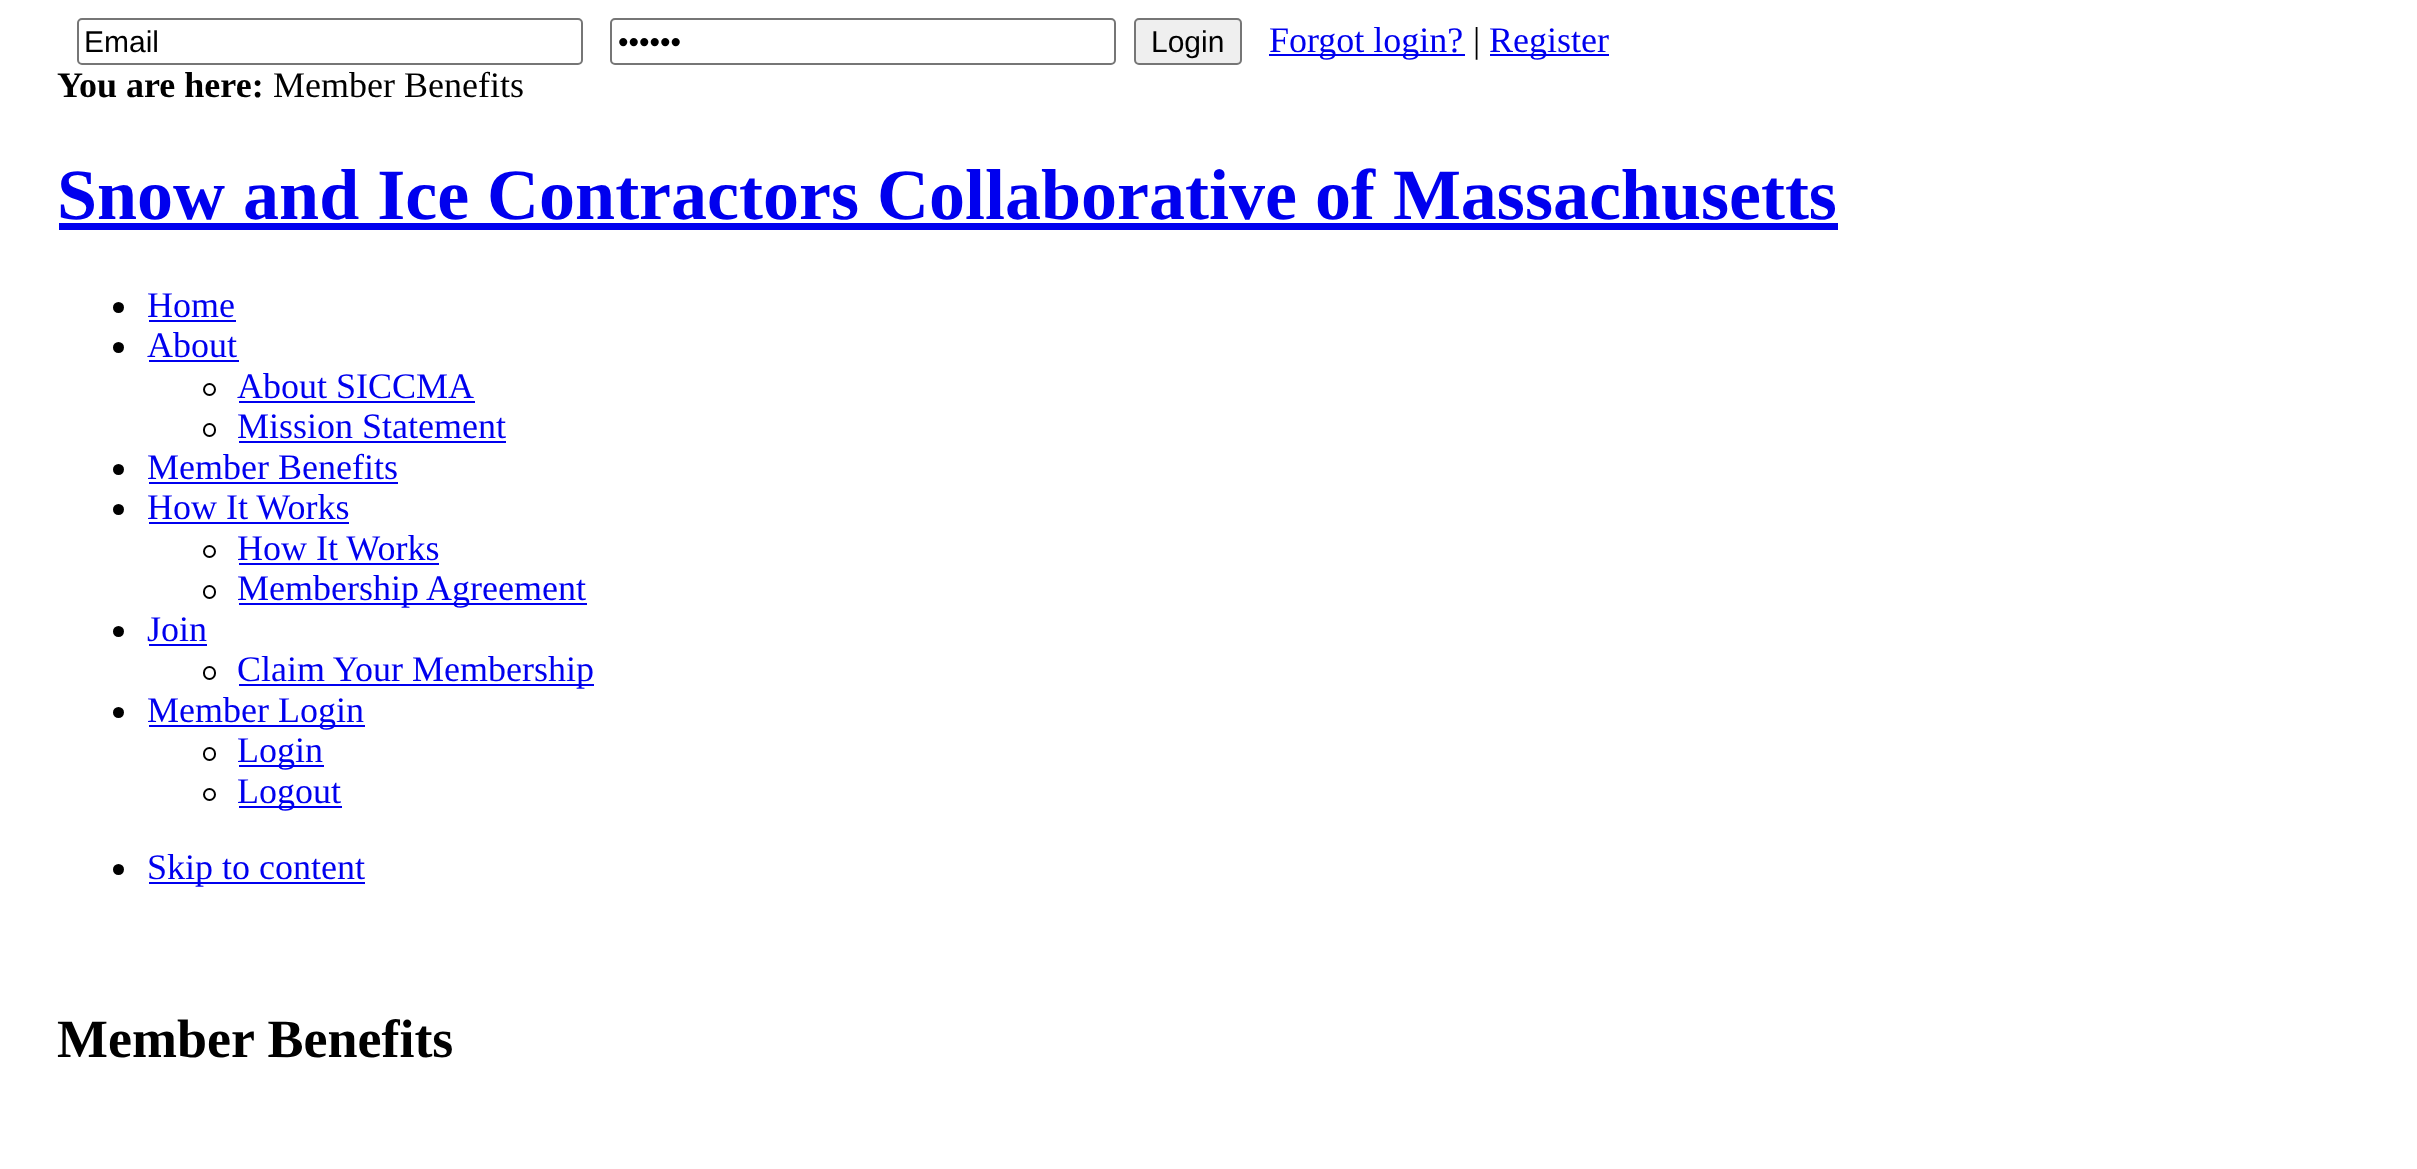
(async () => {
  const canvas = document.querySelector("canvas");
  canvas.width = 2417;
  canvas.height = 1169;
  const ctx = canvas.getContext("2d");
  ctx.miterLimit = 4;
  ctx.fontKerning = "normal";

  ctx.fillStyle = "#ffffff";
  ctx.fillRect(0, 0, 2417, 1169);
  ctx.beginPath();
  ctx.roundRect(78, 19, 504, 45, 4);
  ctx.strokeStyle = "#767676";
  ctx.lineWidth = 2;
  ctx.stroke();
  ctx.beginPath();
  ctx.roundRect(611, 19, 504, 45, 4);
  ctx.stroke();
  ctx.fillStyle = "#efefef";
  ctx.beginPath();
  ctx.roundRect(1135, 19, 106, 45, 4);
  ctx.fill();
  ctx.stroke();
  for (const [x, y, w, h, color] of [
    [1269, 54, 196, 2, "#0000ee"],
    [1490, 54, 119, 2, "#0000ee"],
    [59, 223, 1779, 7, "#0000ee"],
  ]) {
    ctx.fillStyle = color;
    ctx.fillRect(x, y, w, h);
  }
  ctx.fillStyle = "#000000";
  ctx.beginPath();
  ctx.arc(118.5, 307.5, 5.5, 0, Math.PI * 2);
  ctx.fill();
  ctx.fillStyle = "#0000ee";
  ctx.fillRect(149, 320, 87, 2);
  ctx.fillStyle = "#000000";
  ctx.beginPath();
  ctx.arc(118.5, 347.5, 5.5, 0, Math.PI * 2);
  ctx.fill();
  ctx.fillStyle = "#0000ee";
  ctx.fillRect(149, 360, 90, 2);
  ctx.beginPath();
  ctx.arc(209.5, 389.5, 5.5, 0, Math.PI * 2);
  ctx.strokeStyle = "#000000";
  ctx.stroke();
  ctx.fillRect(239, 401, 236, 2);
  ctx.beginPath();
  ctx.roundRect(204, 424, 11, 12, 5.5);
  ctx.stroke();
  ctx.fillRect(239, 441, 267, 2);
  ctx.fillStyle = "#000000";
  ctx.beginPath();
  ctx.arc(118.5, 469.5, 5.5, 0, Math.PI * 2);
  ctx.fill();
  ctx.fillStyle = "#0000ee";
  ctx.fillRect(149, 482, 249, 2);
  ctx.fillStyle = "#000000";
  ctx.beginPath();
  ctx.arc(118.5, 509.5, 5.5, 0, Math.PI * 2);
  ctx.fill();
  ctx.fillStyle = "#0000ee";
  ctx.fillRect(149, 522, 200, 2);
  ctx.beginPath();
  ctx.arc(209.5, 551.5, 5.5, 0, Math.PI * 2);
  ctx.stroke();
  ctx.fillRect(239, 563, 200, 2);
  ctx.beginPath();
  ctx.roundRect(204, 586, 11, 12, 5.5);
  ctx.stroke();
  ctx.fillRect(239, 603, 348, 2);
  ctx.fillStyle = "#000000";
  ctx.beginPath();
  ctx.arc(118.5, 631.5, 5.5, 0, Math.PI * 2);
  ctx.fill();
  ctx.fillStyle = "#0000ee";
  ctx.fillRect(149, 644, 58, 2);
  ctx.beginPath();
  ctx.roundRect(204, 667, 11, 12, 5.5);
  ctx.stroke();
  ctx.fillRect(239, 684, 355, 2);
  ctx.fillStyle = "#000000";
  ctx.beginPath();
  ctx.arc(118.5, 712.5, 5.5, 0, Math.PI * 2);
  ctx.fill();
  ctx.fillStyle = "#0000ee";
  ctx.fillRect(149, 725, 216, 2);
  ctx.beginPath();
  ctx.roundRect(204, 748, 11, 12, 5.5);
  ctx.stroke();
  ctx.fillRect(239, 765, 85, 2);
  ctx.beginPath();
  ctx.arc(209.5, 794.5, 5.5, 0, Math.PI * 2);
  ctx.stroke();
  ctx.fillRect(239, 806, 103, 2);
  ctx.fillStyle = "#000000";
  ctx.beginPath();
  ctx.arc(118.5, 869.5, 5.5, 0, Math.PI * 2);
  ctx.fill();
  ctx.fillStyle = "#0000ee";
  ctx.fillRect(149, 882, 216, 2);
  ctx.font = "30px Liberation Sans";
  ctx.fillStyle = "#000000";
  for (const [text, x, y] of [
    ["Email", 84, 52],
    ["••••••", 618, 52],
    ["Login", 1151, 52],
  ]) {
    ctx.fillText(text, x, y);
  }
  ctx.font = "36px Liberation Serif";
  ctx.fillStyle = "#0000ee";
  ctx.fillText("Forgot login?", 1269, 52);
  ctx.fillStyle = "#000000";
  ctx.fillText("|", 1473, 52);
  ctx.fillStyle = "#0000ee";
  ctx.fillText("Register", 1489, 52);
  ctx.font = "bold 36px Liberation Serif";
  ctx.fillStyle = "#000000";
  ctx.fillText("You are here:", 57, 97);
  ctx.font = "36px Liberation Serif";
  ctx.fillText("Member Benefits", 273, 97);
  ctx.font = "bold 72px Liberation Serif";
  ctx.fillStyle = "#0000ee";
  ctx.fillText("Snow and Ice Contractors Collaborative of Massachusetts", 57, 219);
  ctx.font = "36px Liberation Serif";
  for (const [text, x, y] of [
    ["Home", 147, 317],
    ["About", 147, 357],
    ["About SICCMA", 237, 398],
    ["Mission Statement", 237, 438],
    ["Member Benefits", 147, 479],
    ["How It Works", 147, 519],
    ["How It Works", 237, 560],
    ["Membership Agreement", 237, 600],
    ["Join", 147, 641],
    ["Claim Your Membership", 237, 681],
    ["Member Login", 147, 722],
    ["Login", 237, 762],
    ["Logout", 237, 803],
    ["Skip to content", 147, 879],
  ]) {
    ctx.fillText(text, x, y);
  }
  ctx.font = "bold 54px Liberation Serif";
  ctx.fillStyle = "#000000";
  ctx.fillText("Member Benefits", 57, 1057);
})();
